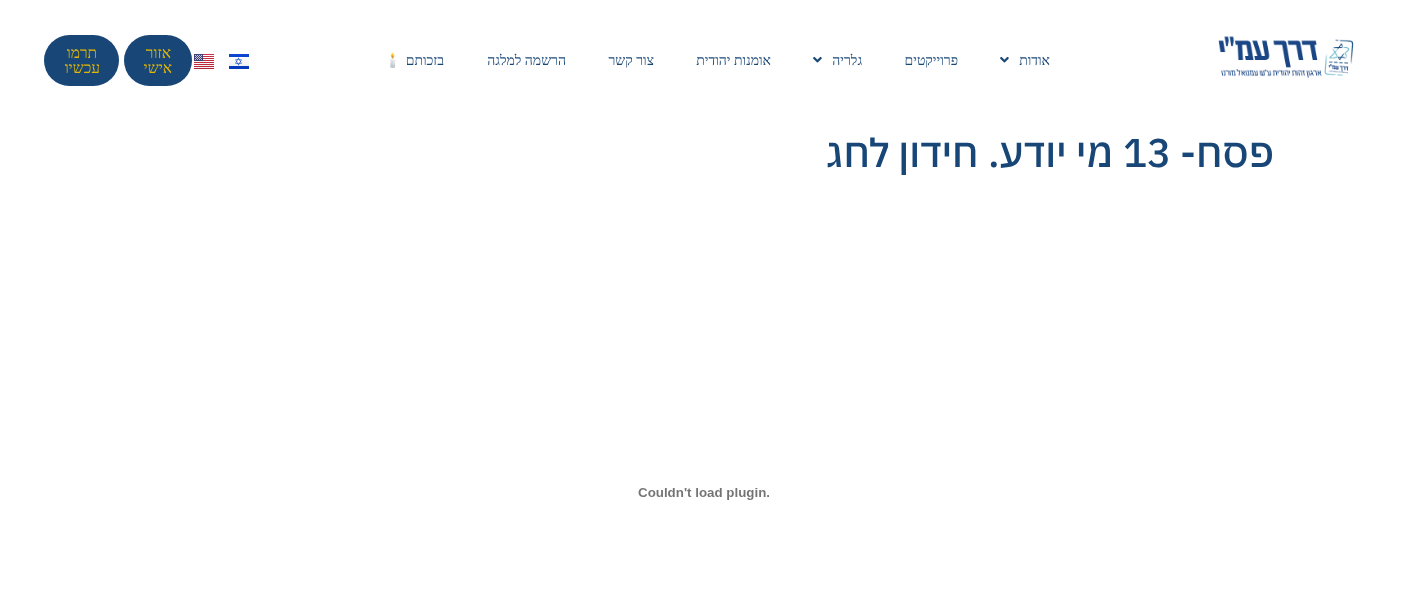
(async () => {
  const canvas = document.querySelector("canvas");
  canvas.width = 1408;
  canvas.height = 591;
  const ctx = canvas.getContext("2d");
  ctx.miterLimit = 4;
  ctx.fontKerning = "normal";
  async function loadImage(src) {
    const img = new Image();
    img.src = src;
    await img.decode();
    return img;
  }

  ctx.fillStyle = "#ffffff";
  ctx.fillRect(0, 0, 1408, 591);
  ctx.drawImage(await loadImage("img/1.png"), 1218, 36, 136, 42);
  ctx.drawImage(await loadImage("img/2.png"), 1000, 56, 9, 7);
  ctx.drawImage(await loadImage("img/2.png"), 813, 56, 9, 7);
  ctx.drawImage(await loadImage("img/3.png"), 229, 54, 20, 15);
  ctx.drawImage(await loadImage("img/4.png"), 194, 54, 20, 15);
  ctx.fillStyle = "#184777";
  ctx.beginPath();
  ctx.roundRect(124, 35, 68, 51, 25.5);
  ctx.fill();
  ctx.beginPath();
  ctx.roundRect(44, 35, 75, 51, 25.5);
  ctx.fill();
  ctx.drawImage(await loadImage("img/5.png"), 638, 488, 131, 12);
  ctx.direction = "rtl";
  ctx.font = "14px Liberation Serif";
  for (const [text, x, y] of [
    ["אודות", 1050, 65],
    ["פרוייקטים", 958, 65],
    ["גלריה", 862, 65],
    ["אומנות יהודית", 771, 65],
    ["צור קשר", 654, 65],
    ["הרשמה למלגה", 566, 65],
    ["בזכותם", 444, 65],
  ]) {
    ctx.fillText(text, x, y);
  }
  ctx.font = "14px Noto Color Emoji";
  ctx.fillText("🕯️", 402, 65);
  ctx.font = "15.5px Liberation Serif";
  ctx.fillStyle = "#e4b704";
  for (const [text, x, y] of [
    ["אזור", 171, 58],
    ["אישי", 172, 73],
    ["תרמו", 97, 58],
    ["עכשיו", 100, 73],
  ]) {
    ctx.fillText(text, x, y);
  }
  ctx.font = "500 40px IBM Plex Sans Hebrew";
  ctx.fillStyle = "#184777";
  ctx.fillText("פסח-", 1274, 167);
  ctx.direction = "ltr";
  ctx.fillText("13", 1123, 167);
  ctx.direction = "rtl";
  ctx.fillText("מי יודע. חידון לחג", 1113, 167);
})();
